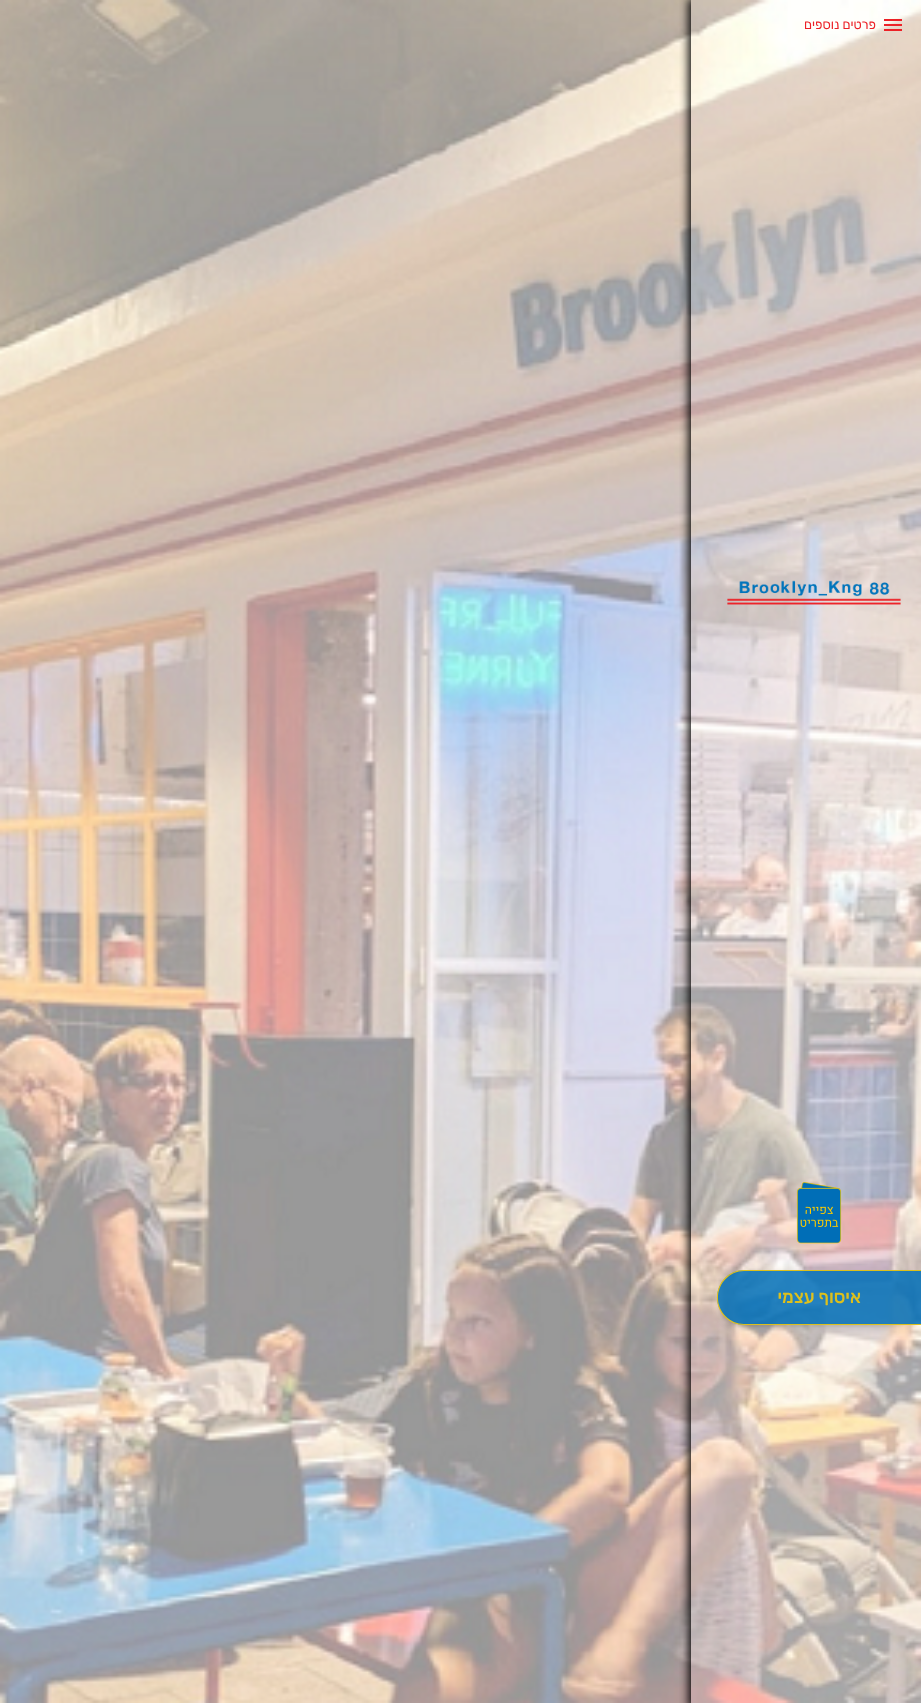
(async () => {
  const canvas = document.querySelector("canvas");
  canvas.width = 921;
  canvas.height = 1703;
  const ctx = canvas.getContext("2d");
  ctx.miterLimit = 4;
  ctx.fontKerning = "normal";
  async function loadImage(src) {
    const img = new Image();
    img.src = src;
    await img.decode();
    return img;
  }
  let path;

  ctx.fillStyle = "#ffffff";
  ctx.fillRect(0, 0, 921, 1703);
  ctx.drawImage(await loadImage("img/1.png"), 0, 0, 921, 1703);
  ctx.save();
  ctx.beginPath();
  ctx.rect(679, 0, 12, 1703);
  ctx.clip();
  ctx.fillStyle = "rgba(0, 0, 0, 0.9)";
  ctx.filter = "blur(4.5px)";
  ctx.beginPath();
  ctx.rect(688, -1, 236, 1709);
  ctx.fill();
  ctx.filter = "none";
  ctx.restore();
  ctx.fillStyle = "rgba(255, 255, 255, 0.15)";
  ctx.fillRect(691, 0, 230, 1703);
  ctx.drawImage(await loadImage("img/2.png"), 884, 19, 18, 12);
  ctx.drawImage(await loadImage("img/3.png"), 727, 580, 174, 25);
  ctx.drawImage(await loadImage("img/4.png"), 796, 1182, 46, 62);
  ctx.save();
  path = new Path2D("M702 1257H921V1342H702ZM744.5 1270H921V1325H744.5C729.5 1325 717 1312.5 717 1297.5C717 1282.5 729.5 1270 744.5 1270Z");
  ctx.clip(path, "evenodd");
  ctx.fillStyle = "rgba(0, 0, 0, 0.09)";
  ctx.filter = "blur(4.5px)";
  ctx.beginPath();
  ctx.roundRect(717, 1272, 204, 55, 27.5);
  ctx.fill();
  ctx.filter = "none";
  ctx.restore();
  ctx.save();
  path = new Path2D("M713 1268H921V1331H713ZM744.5 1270H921V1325H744.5C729.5 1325 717 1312.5 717 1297.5C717 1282.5 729.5 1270 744.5 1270Z");
  ctx.clip(path, "evenodd");
  ctx.fillStyle = "rgba(0, 0, 0, 0.06)";
  ctx.filter = "blur(1px)";
  ctx.beginPath();
  ctx.roundRect(717, 1272, 204, 55, 27.5);
  ctx.fill();
  ctx.filter = "none";
  ctx.restore();
  ctx.fillStyle = "rgba(0, 110, 183, 0.85)";
  ctx.beginPath();
  ctx.roundRect(717, 1270, 204, 55, [27.5, 0, 0, 27.5]);
  ctx.fill();
  ctx.fillStyle = "rgba(255, 204, 0, 0.85)";
  path = new Path2D("M744 1270H921V1325H744C729 1325 717 1313 717 1298C717 1282 729 1270 744 1270ZM744 1271H921V1324H744C730 1324 718 1312 718 1298C718 1283 730 1271 744 1271Z");
  ctx.fill(path, "evenodd");
  ctx.direction = "rtl";
  ctx.font = "13px Rubik";
  ctx.fillStyle = "#ec2026";
  ctx.fillText("פרטים נוספים", 876, 29);
  ctx.font = "500 18px Rubik";
  ctx.fillStyle = "#dec01c";
  ctx.fillText("איסוף עצמי", 861, 1303);
})();
